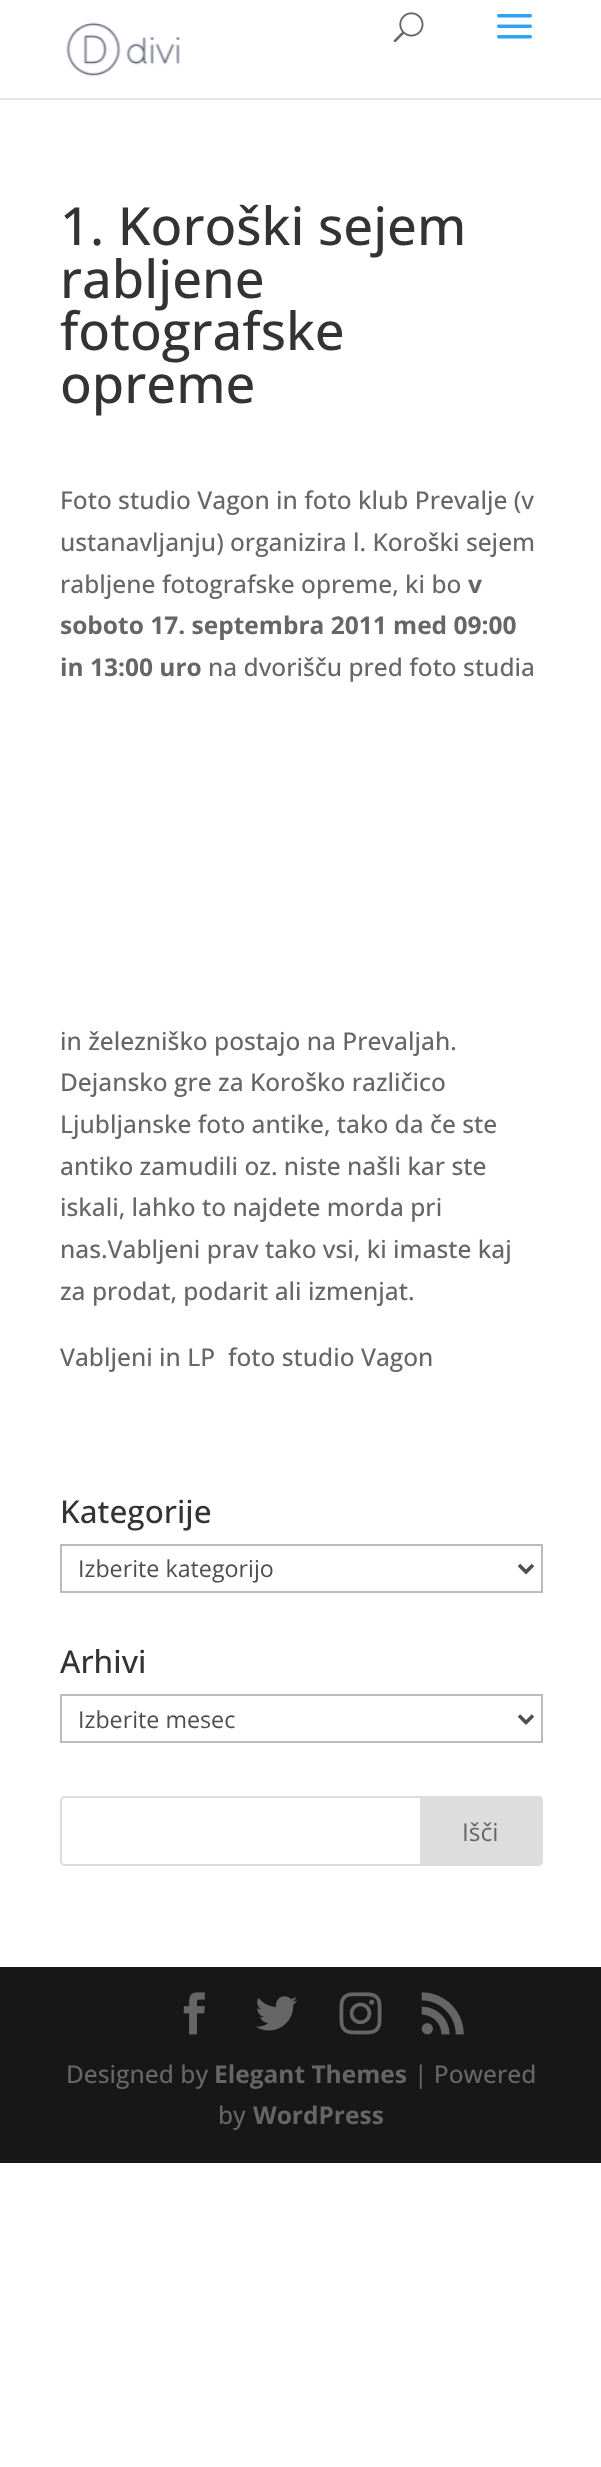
(async () => {
  const canvas = document.querySelector("canvas");
  canvas.width = 601;
  canvas.height = 2467;
  const ctx = canvas.getContext("2d");
  ctx.miterLimit = 4;
  ctx.fontKerning = "normal";
  async function loadImage(src) {
    const img = new Image();
    img.src = src;
    await img.decode();
    return img;
  }
  let path;

  ctx.fillStyle = "#ffffff";
  ctx.fillRect(0, 0, 601, 2467);
  ctx.fillStyle = "#e6e6e6";
  ctx.fillRect(0, 98, 601, 2);
  ctx.drawImage(await loadImage("img/1.png"), 66, 22, 114, 54);
  ctx.drawImage(await loadImage("img/2.png"), 393, 12, 31, 31);
  ctx.drawImage(await loadImage("img/3.png"), 497, 14, 35, 25);
  ctx.strokeStyle = "#bbbbbb";
  ctx.lineWidth = 2;
  ctx.strokeRect(61, 1545, 481, 47);
  path = new Path2D("M519 1565L526 1572L533 1565");
  ctx.strokeStyle = "#4e4e4e";
  ctx.lineWidth = 3.5;
  ctx.stroke(path);
  ctx.strokeStyle = "#bbbbbb";
  ctx.lineWidth = 2;
  ctx.strokeRect(61, 1695, 481, 47);
  path = new Path2D("M519 1715.5L526 1722.5L533 1715.5");
  ctx.strokeStyle = "#4e4e4e";
  ctx.lineWidth = 3.5;
  ctx.stroke(path);
  ctx.beginPath();
  ctx.roundRect(61, 1797, 481, 68, 4);
  ctx.strokeStyle = "#dddddd";
  ctx.lineWidth = 2;
  ctx.stroke();
  ctx.fillStyle = "#dddddd";
  ctx.beginPath();
  ctx.roundRect(421, 1797, 121, 68, [0, 4, 4, 0]);
  ctx.fill();
  ctx.stroke();
  ctx.fillStyle = "#171717";
  ctx.fillRect(0, 1967, 601, 196);
  ctx.drawImage(await loadImage("img/4.png"), 183, 1992, 22, 43);
  ctx.drawImage(await loadImage("img/5.png"), 255, 1996, 43, 35);
  ctx.drawImage(await loadImage("img/6.png"), 339, 1992, 43, 43);
  ctx.drawImage(await loadImage("img/7.png"), 421, 1992, 43, 43);
  ctx.font = "500 52.5px Open Sans";
  ctx.fillStyle = "#333333";
  for (const [text, x, y] of [
    ["1. Koroški sejem", 60, 245],
    ["rabljene", 60, 298],
    ["fotografske", 60, 350],
    ["opreme", 60, 403],
  ]) {
    ctx.fillText(text, x, y);
  }
  ctx.font = "500 24.5px Open Sans";
  ctx.fillStyle = "#666666";
  for (const [text, x, y] of [
    ["Foto studio Vagon in foto klub Prevalje (v", 60, 509],
    ["ustanavljanju) organizira l. Koroški sejem", 60, 551],
    ["rabljene fotografske opreme, ki bo", 60, 593],
  ]) {
    ctx.fillText(text, x, y);
  }
  ctx.font = "bold 24.5px Open Sans";
  for (const [text, x, y] of [
    ["v", 468, 593],
    ["soboto 17. septembra 2011 med 09:00", 60, 634],
    ["in 13:00 uro", 60, 676],
  ]) {
    ctx.fillText(text, x, y);
  }
  ctx.font = "500 24.5px Open Sans";
  for (const [text, x, y] of [
    ["na dvorišču pred foto studia", 208, 676],
    ["in železniško postajo na Prevaljah.", 60, 1050],
    ["Dejansko gre za Koroško različico", 60, 1091],
    ["Ljubljanske foto antike, tako da če ste", 60, 1133],
    ["antiko zamudili oz. niste našli kar ste", 60, 1175],
    ["iskali, lahko to najdete morda pri", 60, 1216],
    ["nas.Vabljeni prav tako vsi, ki imaste kaj", 60, 1258],
    ["za prodat, podarit ali izmenjat.", 60, 1300],
    ["Vabljeni in LP  foto studio Vagon", 60, 1366],
  ]) {
    ctx.fillText(text, x, y);
  }
  ctx.font = "500 31.5px Open Sans";
  ctx.fillStyle = "#333333";
  ctx.fillText("Kategorije", 60, 1523);
  ctx.font = "23.25px Open Sans";
  ctx.fillStyle = "#4e4e4e";
  ctx.fillText("Izberite kategorijo", 78, 1577);
  ctx.font = "500 31.5px Open Sans";
  ctx.fillStyle = "#333333";
  ctx.fillText("Arhivi", 60, 1673);
  ctx.font = "23.25px Open Sans";
  ctx.fillStyle = "#4e4e4e";
  ctx.fillText("Izberite mesec", 78, 1728);
  ctx.font = "24.5px Open Sans";
  ctx.fillStyle = "#666666";
  ctx.fillText("Išči", 462, 1841);
  ctx.font = "500 24.5px Open Sans";
  ctx.fillText("Designed by", 66, 2083);
  ctx.font = "bold 24.5px Open Sans";
  ctx.fillText("Elegant Themes", 214, 2083);
  ctx.font = "500 24.5px Open Sans";
  ctx.fillText("| Powered", 414, 2083);
  ctx.fillText("by", 218, 2124);
  ctx.font = "bold 24.5px Open Sans";
  ctx.fillText("WordPress", 253, 2124);
})();
